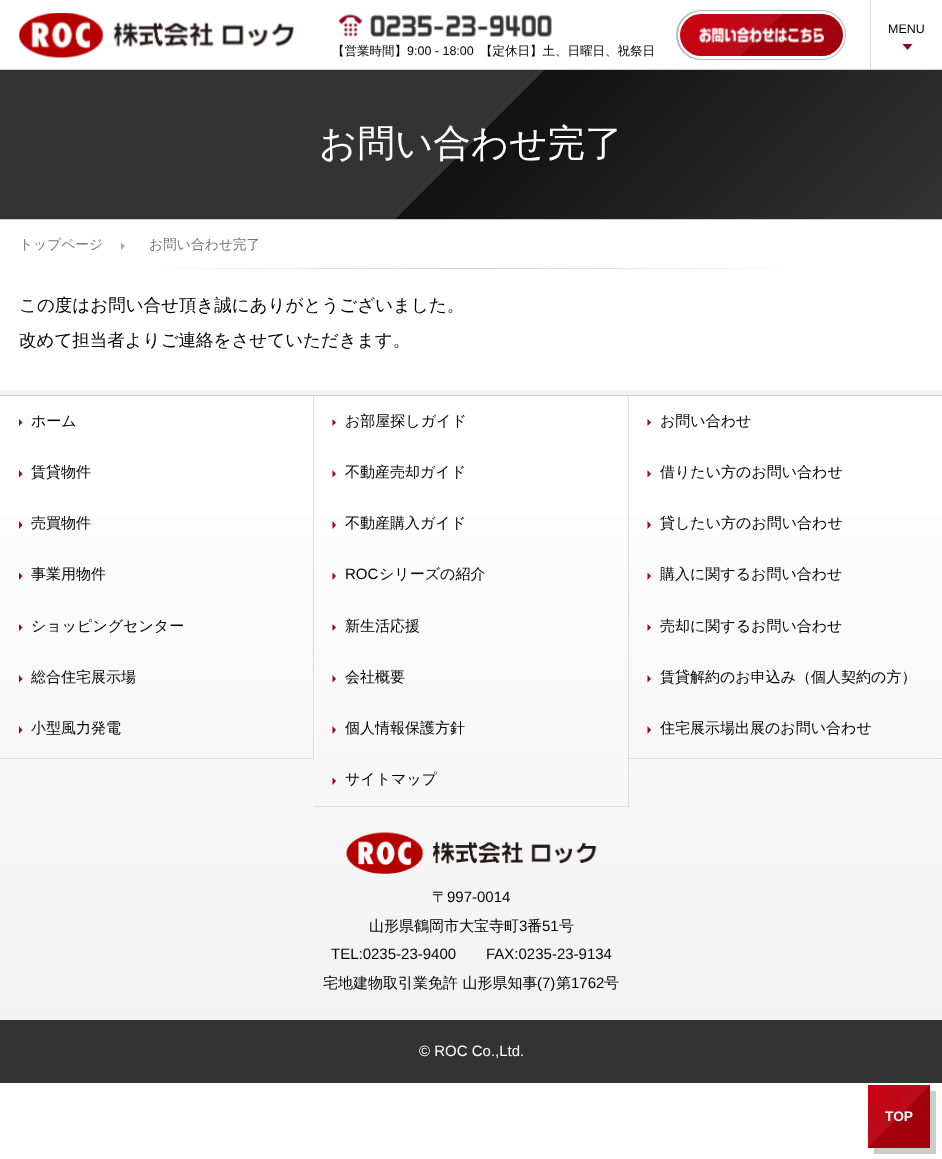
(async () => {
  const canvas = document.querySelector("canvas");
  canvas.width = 942;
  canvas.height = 1159;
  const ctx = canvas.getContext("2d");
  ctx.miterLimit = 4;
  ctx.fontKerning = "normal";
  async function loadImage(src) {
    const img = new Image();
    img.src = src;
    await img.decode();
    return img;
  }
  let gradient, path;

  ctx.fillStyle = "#ffffff";
  ctx.fillRect(0, 0, 942, 1159);
  ctx.fillStyle = "#cccccc";
  ctx.fillRect(0, 69, 942, 1);
  ctx.drawImage(await loadImage("img/1.png"), 19, 13, 275, 45);
  ctx.beginPath();
  ctx.roundRect(678, 12, 166, 46, 23);
  ctx.strokeStyle = "#bbbbbb";
  ctx.lineWidth = 4;
  ctx.stroke();
  ctx.beginPath();
  ctx.roundRect(679.5, 12.5, 164, 45, 22.5);
  ctx.strokeStyle = "#ffffff";
  ctx.lineWidth = 3;
  ctx.stroke();
  gradient = ctx.createLinearGradient(710, -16, 813, 86);
  gradient.addColorStop(0, "#cd000f");
  gradient.addColorStop(0.5, "#b90d1b");
  gradient.addColorStop(0.5, "#a3000d");
  gradient.addColorStop(1, "#a3000d");
  ctx.fillStyle = gradient;
  ctx.beginPath();
  ctx.roundRect(680, 14, 163, 42, 21);
  ctx.fill();
  ctx.drawImage(await loadImage("img/2.png"), 698, 27, 126, 16);
  ctx.fillStyle = "#dddddd";
  ctx.fillRect(870, 0, 1, 69);
  ctx.fillStyle = "#8d001d";
  path = new Path2D("M902.5 44H912.5L907.5 50Z");
  ctx.fill(path);
  ctx.drawImage(await loadImage("img/3.png"), 338, 14, 214, 23);
  gradient = ctx.createLinearGradient(198, -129, 744, 417);
  gradient.addColorStop(0, "#333333");
  gradient.addColorStop(0.5, "#333333");
  gradient.addColorStop(0.5, "#111111");
  gradient.addColorStop(1, "#333333");
  ctx.fillStyle = gradient;
  ctx.fillRect(0, 70, 942, 149);
  ctx.fillStyle = "#cccccc";
  ctx.fillRect(0, 219, 942, 1);
  ctx.fillStyle = "#aaaaaa";
  path = new Path2D("M121 250V242.5L125 246Z");
  ctx.fill(path);
  gradient = ctx.createLinearGradient(141, 268, 801, 268);
  gradient.addColorStop(0, "#ffffff");
  gradient.addColorStop(0.5, "#cccccc");
  gradient.addColorStop(1, "#ffffff");
  ctx.fillStyle = gradient;
  ctx.fillRect(157, 268, 628, 1);
  ctx.fillStyle = "#cccccc";
  path = new Path2D("M874 1148V1154H936V1091H930V1148Z");
  ctx.fill(path);
  gradient = ctx.createLinearGradient(868, 1085, 930, 1148);
  gradient.addColorStop(0, "#cd000f");
  gradient.addColorStop(0.5, "#b90d1b");
  gradient.addColorStop(0.5, "#a3000d");
  gradient.addColorStop(1, "#a3000d");
  ctx.fillStyle = gradient;
  ctx.fillRect(868, 1085, 62, 63);
  ctx.fillStyle = "#f2f2f2";
  path = new Path2D("M0 390V395H942V1015H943V390Z");
  ctx.fill(path);
  gradient = ctx.createLinearGradient(471, 396, 471, 1020);
  gradient.addColorStop(0, "#ffffff");
  gradient.addColorStop(1, "#f2f2f2");
  ctx.fillStyle = gradient;
  ctx.fillRect(0, 516, 942, 504);
  for (const [x, y, w, h, color] of [
    [0, 395, 942, 1, "#cccccc"],
    [313, 396, 1, 363, "#dddddd"],
    [0, 758, 314, 1, "#dddddd"],
  ]) {
    ctx.fillStyle = color;
    ctx.fillRect(x, y, w, h);
  }
  ctx.fillStyle = "#ad000c";
  path = new Path2D("M19 426V419L22.5 422.5Z");
  ctx.fill(path);
  path = new Path2D("M19 477.5V470L22.5 474Z");
  ctx.fill(path);
  path = new Path2D("M19 529V521L22.5 525Z");
  ctx.fill(path);
  path = new Path2D("M19 580V572.5L22.5 576Z");
  ctx.fill(path);
  path = new Path2D("M19 631V624L22.5 627.5Z");
  ctx.fill(path);
  path = new Path2D("M19 682.5V675L22.5 679Z");
  ctx.fill(path);
  path = new Path2D("M19 734V726L22.5 730Z");
  ctx.fill(path);
  ctx.fillStyle = "#dddddd";
  ctx.fillRect(628, 396, 1, 412);
  ctx.fillRect(314, 806, 315, 1);
  ctx.fillStyle = "#ad000c";
  path = new Path2D("M332.5 426V419L336 422.5Z");
  ctx.fill(path);
  path = new Path2D("M332.5 477.5V470L336 474Z");
  ctx.fill(path);
  path = new Path2D("M332.5 529V521L336 525Z");
  ctx.fill(path);
  path = new Path2D("M332.5 580V572.5L336 576Z");
  ctx.fill(path);
  path = new Path2D("M332.5 631V624L336 627.5Z");
  ctx.fill(path);
  path = new Path2D("M332.5 682.5V675L336 679Z");
  ctx.fill(path);
  path = new Path2D("M332.5 734V726L336 730Z");
  ctx.fill(path);
  path = new Path2D("M332.5 785V777.5L336 781Z");
  ctx.fill(path);
  ctx.fillStyle = "#dddddd";
  ctx.fillRect(629, 758, 313, 1);
  ctx.fillStyle = "#ad000c";
  path = new Path2D("M647.5 426V419L651 422.5Z");
  ctx.fill(path);
  path = new Path2D("M647.5 477.5V470L651 474Z");
  ctx.fill(path);
  path = new Path2D("M647.5 529V521L651 525Z");
  ctx.fill(path);
  path = new Path2D("M647.5 580V572.5L651 576Z");
  ctx.fill(path);
  path = new Path2D("M647.5 631V624L651 627.5Z");
  ctx.fill(path);
  path = new Path2D("M647.5 682.5V675L651 679Z");
  ctx.fill(path);
  path = new Path2D("M647.5 734V726L651 730Z");
  ctx.fill(path);
  ctx.drawImage(await loadImage("img/4.png"), 346, 832, 251, 42);
  ctx.fillStyle = "#333333";
  ctx.fillRect(0, 1020, 942, 63);
  ctx.font = "12.5px Liberation Sans";
  ctx.fillStyle = "#000000";
  ctx.fillText("MENU", 888, 33);
  ctx.font = "500 12.5px WenQuanYi Zen Hei";
  ctx.fillText("【営業時間】", 332, 55);
  ctx.font = "12.5px Liberation Sans";
  ctx.fillText("9:00 - 18:00", 407, 55);
  ctx.font = "500 12.5px WenQuanYi Zen Hei";
  ctx.fillText("【定休日】土、日曜日、祝祭日", 480, 55);
  ctx.font = "500 37.5px WenQuanYi Zen Hei";
  ctx.fillStyle = "#ffffff";
  ctx.fillText("お問い合わせ完了", 319, 156);
  ctx.font = "500 13.75px WenQuanYi Zen Hei";
  ctx.fillStyle = "#777777";
  ctx.fillText("トップページ", 19, 249);
  ctx.fillText("お問い合わせ完了", 149, 249);
  ctx.font = "500 17.5px WenQuanYi Zen Hei";
  ctx.fillStyle = "#000000";
  ctx.fillText("この度はお問い合せ頂き誠にありがとうございました。", 19, 311);
  ctx.fillText("改めて担当者よりご連絡をさせていただきます。", 19, 346);
  ctx.font = "bold 13.75px Liberation Sans";
  ctx.fillStyle = "#ffffff";
  ctx.fillText("TOP", 885, 1121);
  ctx.font = "500 15px WenQuanYi Zen Hei";
  ctx.fillStyle = "#000000";
  for (const [text, x, y] of [
    ["ホーム", 31, 426],
    ["賃貸物件", 31, 477],
    ["売買物件", 31, 528],
    ["事業用物件", 31, 579],
    ["ショッピングセンター", 31, 631],
    ["総合住宅展示場", 31, 682],
    ["小型風力発電", 31, 733],
    ["お部屋探しガイド", 345, 426],
    ["不動産売却ガイド", 345, 477],
    ["不動産購入ガイド", 345, 528],
  ]) {
    ctx.fillText(text, x, y);
  }
  ctx.font = "15px Liberation Sans";
  ctx.fillText("ROC", 345, 579);
  ctx.font = "500 15px WenQuanYi Zen Hei";
  for (const [text, x, y] of [
    ["シリーズの紹介", 379, 579],
    ["新生活応援", 345, 631],
    ["会社概要", 345, 682],
    ["個人情報保護方針", 345, 733],
    ["サイトマップ", 345, 784],
    ["お問い合わせ", 660, 426],
    ["借りたい方のお問い合わせ", 660, 477],
    ["貸したい方のお問い合わせ", 660, 528],
    ["購入に関するお問い合わせ", 660, 579],
    ["売却に関するお問い合わせ", 660, 631],
    ["賃貸解約のお申込み（個人契約の方）", 660, 682],
    ["住宅展示場出展のお問い合わせ", 660, 733],
    ["〒", 432, 902],
  ]) {
    ctx.fillText(text, x, y);
  }
  ctx.font = "15px Liberation Sans";
  ctx.fillText("997-0014", 447, 902);
  ctx.font = "500 15px WenQuanYi Zen Hei";
  ctx.fillText("山形県鶴岡市大宝寺町", 369, 931);
  ctx.font = "15px Liberation Sans";
  ctx.fillText("3", 519, 931);
  ctx.font = "500 15px WenQuanYi Zen Hei";
  ctx.fillText("番", 527, 931);
  ctx.font = "15px Liberation Sans";
  ctx.fillText("51", 542, 931);
  ctx.font = "500 15px WenQuanYi Zen Hei";
  ctx.fillText("号", 559, 931);
  ctx.font = "15px Liberation Sans";
  ctx.fillText("TEL:0235-23-9400", 331, 959);
  ctx.fillText("FAX:0235-23-9134", 486, 959);
  ctx.font = "500 15px WenQuanYi Zen Hei";
  ctx.fillText("宅地建物取引業免許 山形県知事", 323, 988);
  ctx.font = "15px Liberation Sans";
  ctx.fillText("(7)", 537, 988);
  ctx.font = "500 15px WenQuanYi Zen Hei";
  ctx.fillText("第", 556, 988);
  ctx.font = "15px Liberation Sans";
  ctx.fillText("1762", 571, 988);
  ctx.font = "500 15px WenQuanYi Zen Hei";
  ctx.fillText("号", 604, 988);
  ctx.font = "15px Liberation Sans";
  ctx.fillStyle = "#ffffff";
  ctx.fillText("© ROC Co.,Ltd.", 419, 1056);
})();
